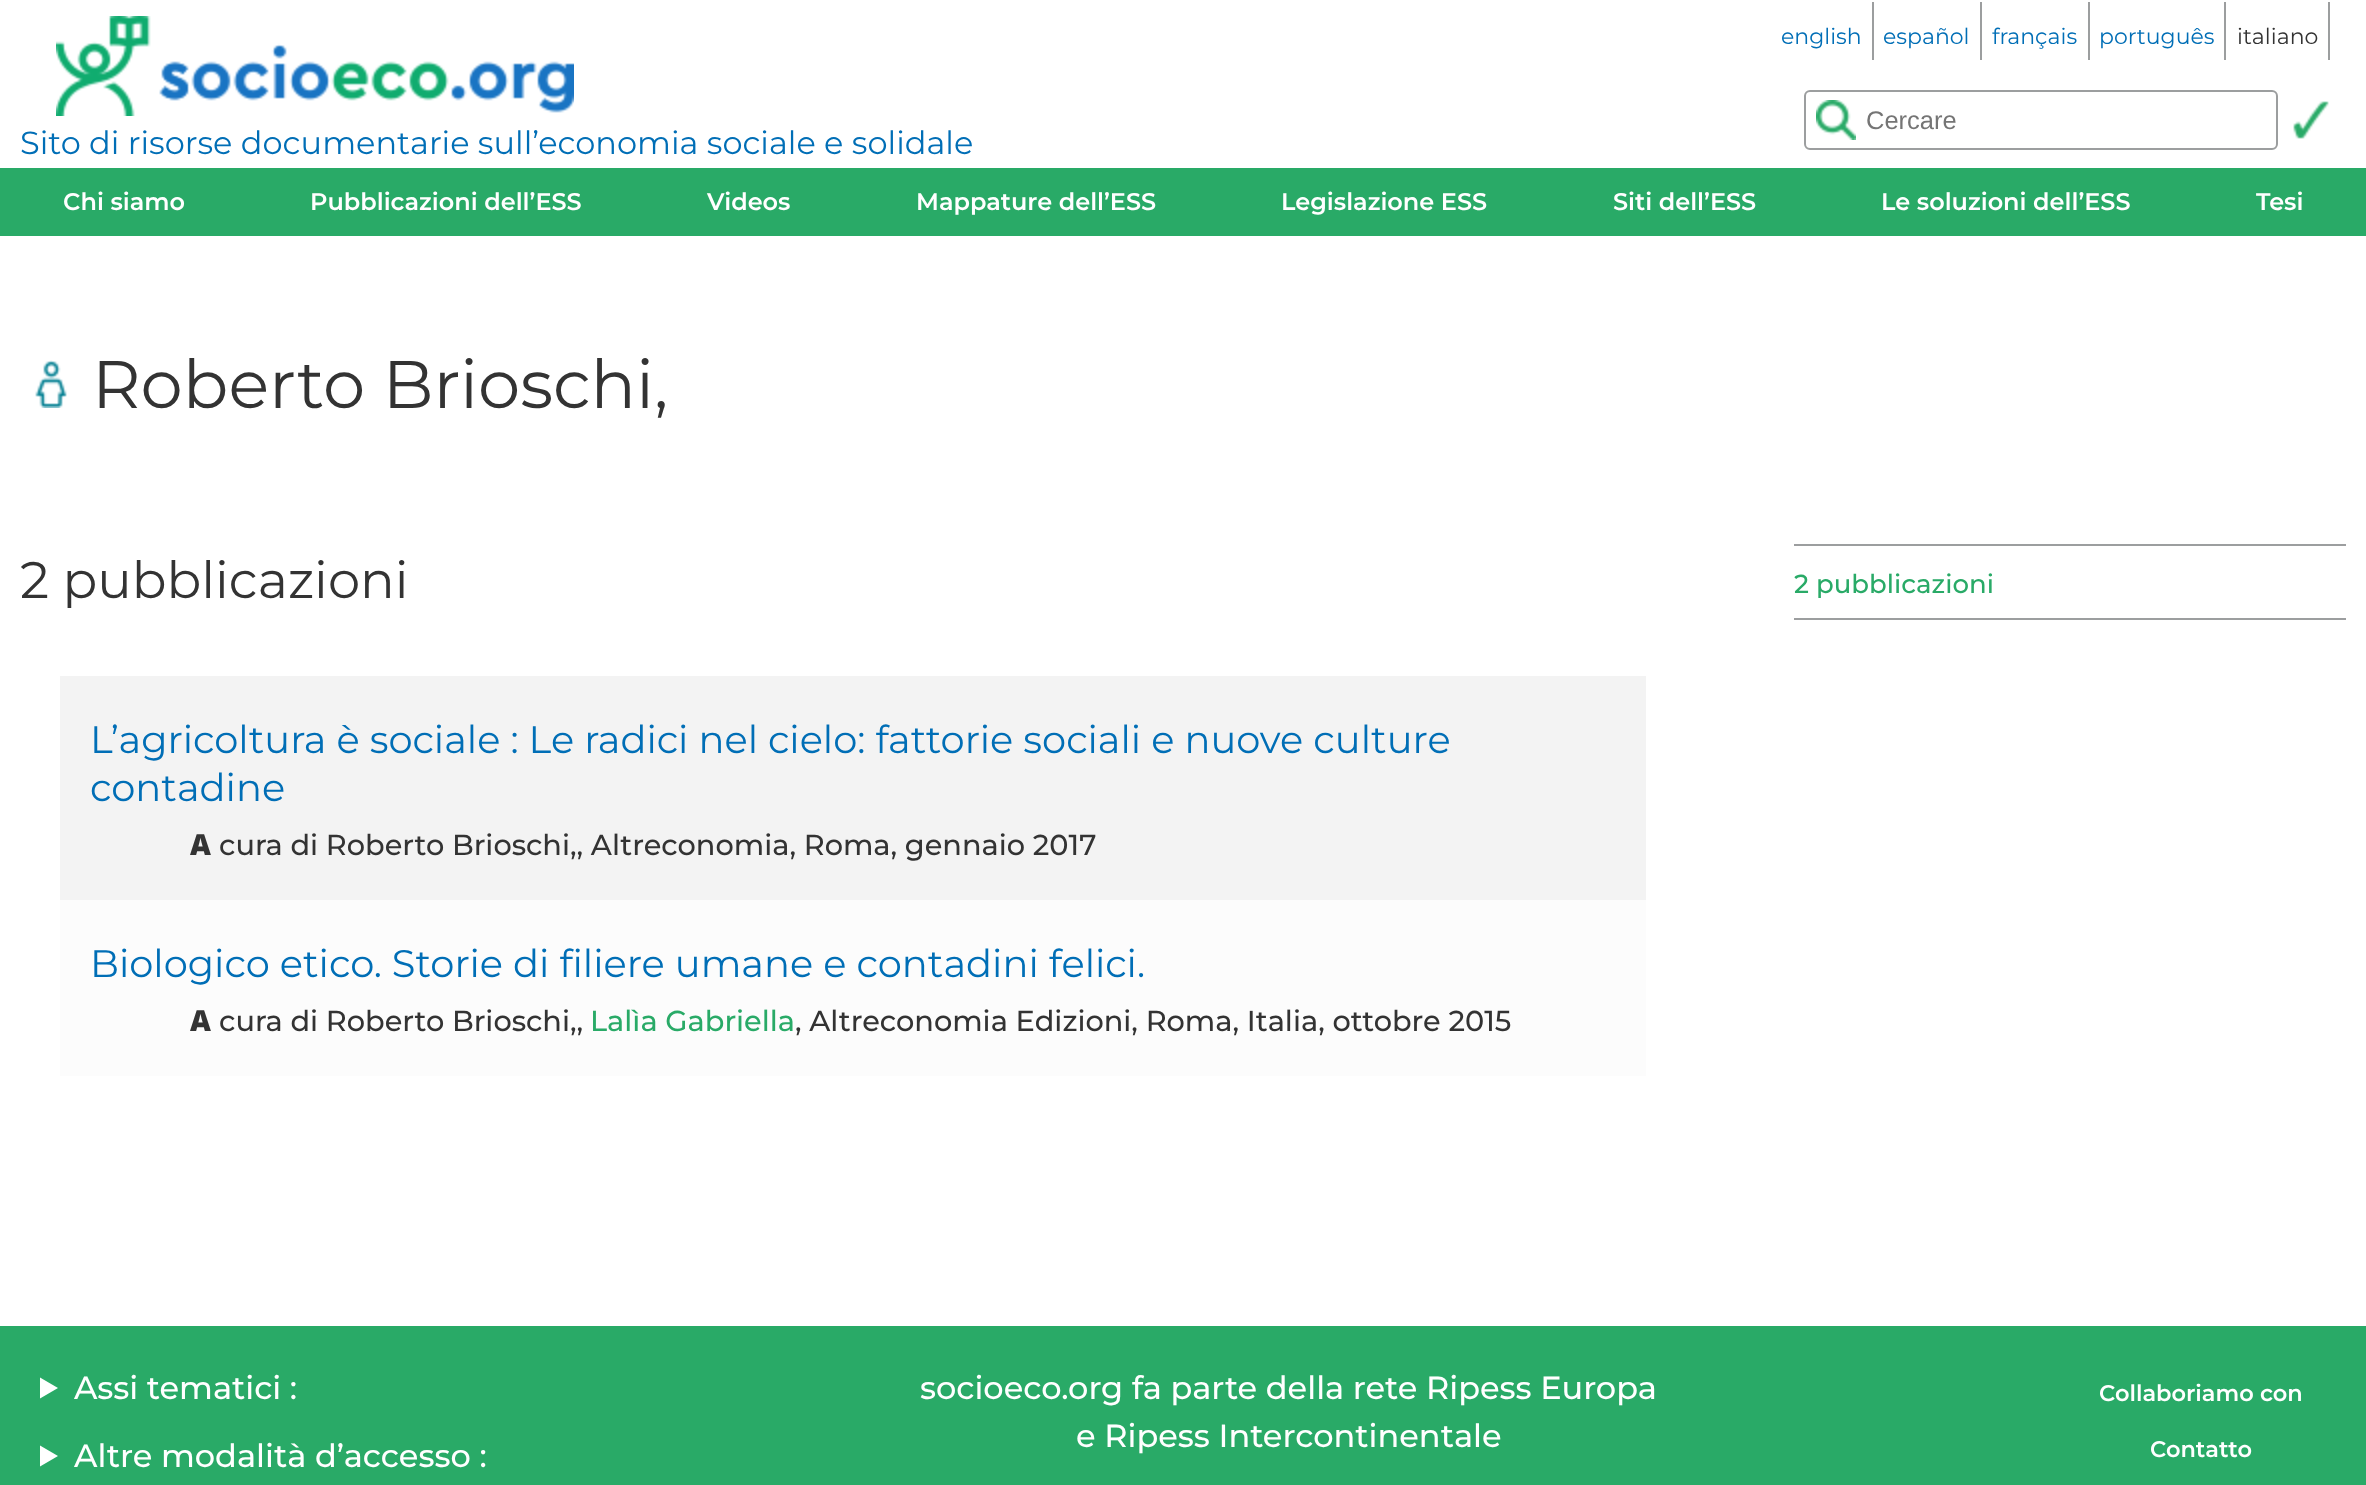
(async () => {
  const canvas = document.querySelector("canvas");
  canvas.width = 2366;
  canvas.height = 1485;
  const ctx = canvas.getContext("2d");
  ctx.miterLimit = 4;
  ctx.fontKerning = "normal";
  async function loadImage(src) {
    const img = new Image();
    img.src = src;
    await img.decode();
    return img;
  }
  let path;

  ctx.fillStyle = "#ffffff";
  ctx.fillRect(0, 0, 2366, 1485);
  for (const [x, y, w, h, color] of [
    [1872, 2, 2, 58, "#9c9e9f"],
    [1980, 2, 2, 58, "#9c9e9f"],
    [2088, 2, 2, 58, "#9c9e9f"],
    [2224, 2, 2, 58, "#9c9e9f"],
    [2328, 2, 2, 58, "#9c9e9f"],
    [0, 168, 2366, 68, "#29aa67"],
  ]) {
    ctx.fillStyle = color;
    ctx.fillRect(x, y, w, h);
  }
  ctx.drawImage(await loadImage("img/1.png"), 1816, 100, 40, 40);
  ctx.beginPath();
  ctx.roundRect(1805, 91, 472, 58, 5);
  ctx.strokeStyle = "#9c9e9f";
  ctx.lineWidth = 2;
  ctx.stroke();
  ctx.drawImage(await loadImage("img/2.png"), 2293, 101, 36, 38);
  ctx.drawImage(await loadImage("img/3.png"), 56, 16, 518, 100);
  ctx.drawImage(await loadImage("img/4.png"), 35, 360, 32, 48);
  for (const [x, y, w, h, color] of [
    [60, 676, 1586, 224, "#f3f3f3"],
    [60, 900, 1586, 176, "#fcfcfc"],
    [1794, 544, 552, 2, "#9c9e9f"],
    [1794, 618, 552, 2, "#9c9e9f"],
    [0, 1326, 2366, 159, "#29aa67"],
  ]) {
    ctx.fillStyle = color;
    ctx.fillRect(x, y, w, h);
  }
  ctx.fillStyle = "#ffffff";
  path = new Path2D("M40 1377.5L58 1388L40 1398.5Z");
  ctx.fill(path);
  path = new Path2D("M40 1445.5L58 1456L40 1466.5Z");
  ctx.fill(path);
  ctx.font = "22px Montserrat";
  ctx.fillStyle = "#006eb6";
  for (const [text, x, y] of [
    ["english", 1781, 44],
    ["español", 1883, 44],
    ["français", 1992, 44],
    ["português", 2099, 44],
  ]) {
    ctx.fillText(text, x, y);
  }
  ctx.fillStyle = "#333333";
  ctx.fillText("italiano", 2237, 44);
  ctx.font = "25.5px Liberation Sans";
  ctx.fillStyle = "#757575";
  ctx.fillText("Cercare", 1866, 129);
  ctx.font = "600 24px Montserrat";
  ctx.fillStyle = "#ffffff";
  for (const [text, x, y] of [
    ["Chi siamo", 63, 210],
    ["Pubblicazioni dell’ESS", 310, 210],
    ["Videos", 707, 210],
    ["Mappature dell’ESS", 916, 210],
    ["Legislazione ESS", 1281, 210],
    ["Siti dell’ESS", 1613, 210],
    ["Le soluzioni dell’ESS", 1881, 210],
    ["Tesi", 2256, 210],
  ]) {
    ctx.fillText(text, x, y);
  }
  ctx.font = "32px Montserrat";
  ctx.fillStyle = "#006eb6";
  ctx.fillText("Sito di risorse documentarie sull’economia sociale e solidale", 20, 154);
  ctx.font = "67.25px Montserrat";
  ctx.fillStyle = "#333333";
  ctx.fillText("Roberto Brioschi,", 92, 408);
  ctx.font = "51.25px Montserrat";
  ctx.fillText("2 pubblicazioni", 20, 598);
  ctx.font = "38.4px Montserrat";
  ctx.fillStyle = "#006eb6";
  ctx.fillText("L’agricoltura è sociale : Le radici nel cielo: fattorie sociali e nuove culture", 90, 753);
  ctx.fillText("contadine", 90, 801);
  ctx.font = "900 28.8px Noto Sans";
  ctx.fillStyle = "#333333";
  ctx.fillText("A", 190, 855);
  ctx.font = "500 28.8px Montserrat";
  ctx.fillText("cura di Roberto Brioschi,, Altreconomia, Roma, gennaio 2017", 219, 855);
  ctx.font = "38.4px Montserrat";
  ctx.fillStyle = "#006eb6";
  ctx.fillText("Biologico etico. Storie di filiere umane e contadini felici.", 90, 977);
  ctx.font = "900 28.8px Noto Sans";
  ctx.fillStyle = "#333333";
  ctx.fillText("A", 190, 1031);
  ctx.font = "500 28.8px Montserrat";
  ctx.fillText("cura di Roberto Brioschi,,", 219, 1031);
  ctx.fillStyle = "#29aa67";
  ctx.fillText("Lalìa Gabriella", 590, 1031);
  ctx.fillStyle = "#333333";
  ctx.fillText(", Altreconomia Edizioni, Roma, Italia, ottobre 2015", 795, 1031);
  ctx.font = "500 26px Montserrat";
  ctx.fillStyle = "#29aa67";
  ctx.fillText("2 pubblicazioni", 1794, 593);
  ctx.font = "500 32px Montserrat";
  ctx.fillStyle = "#ffffff";
  for (const [text, x, y] of [
    ["Assi tematici :", 74, 1399],
    ["Altre modalità d’accesso :", 74, 1467],
    ["socioeco.org fa parte della rete Ripess Europa", 920, 1399],
    ["e Ripess Intercontinentale", 1076, 1447],
  ]) {
    ctx.fillText(text, x, y);
  }
  ctx.font = "600 22.5px Montserrat";
  ctx.fillText("Collaboriamo con", 2099, 1401);
  ctx.fillText("Contatto", 2150, 1457);
})();
